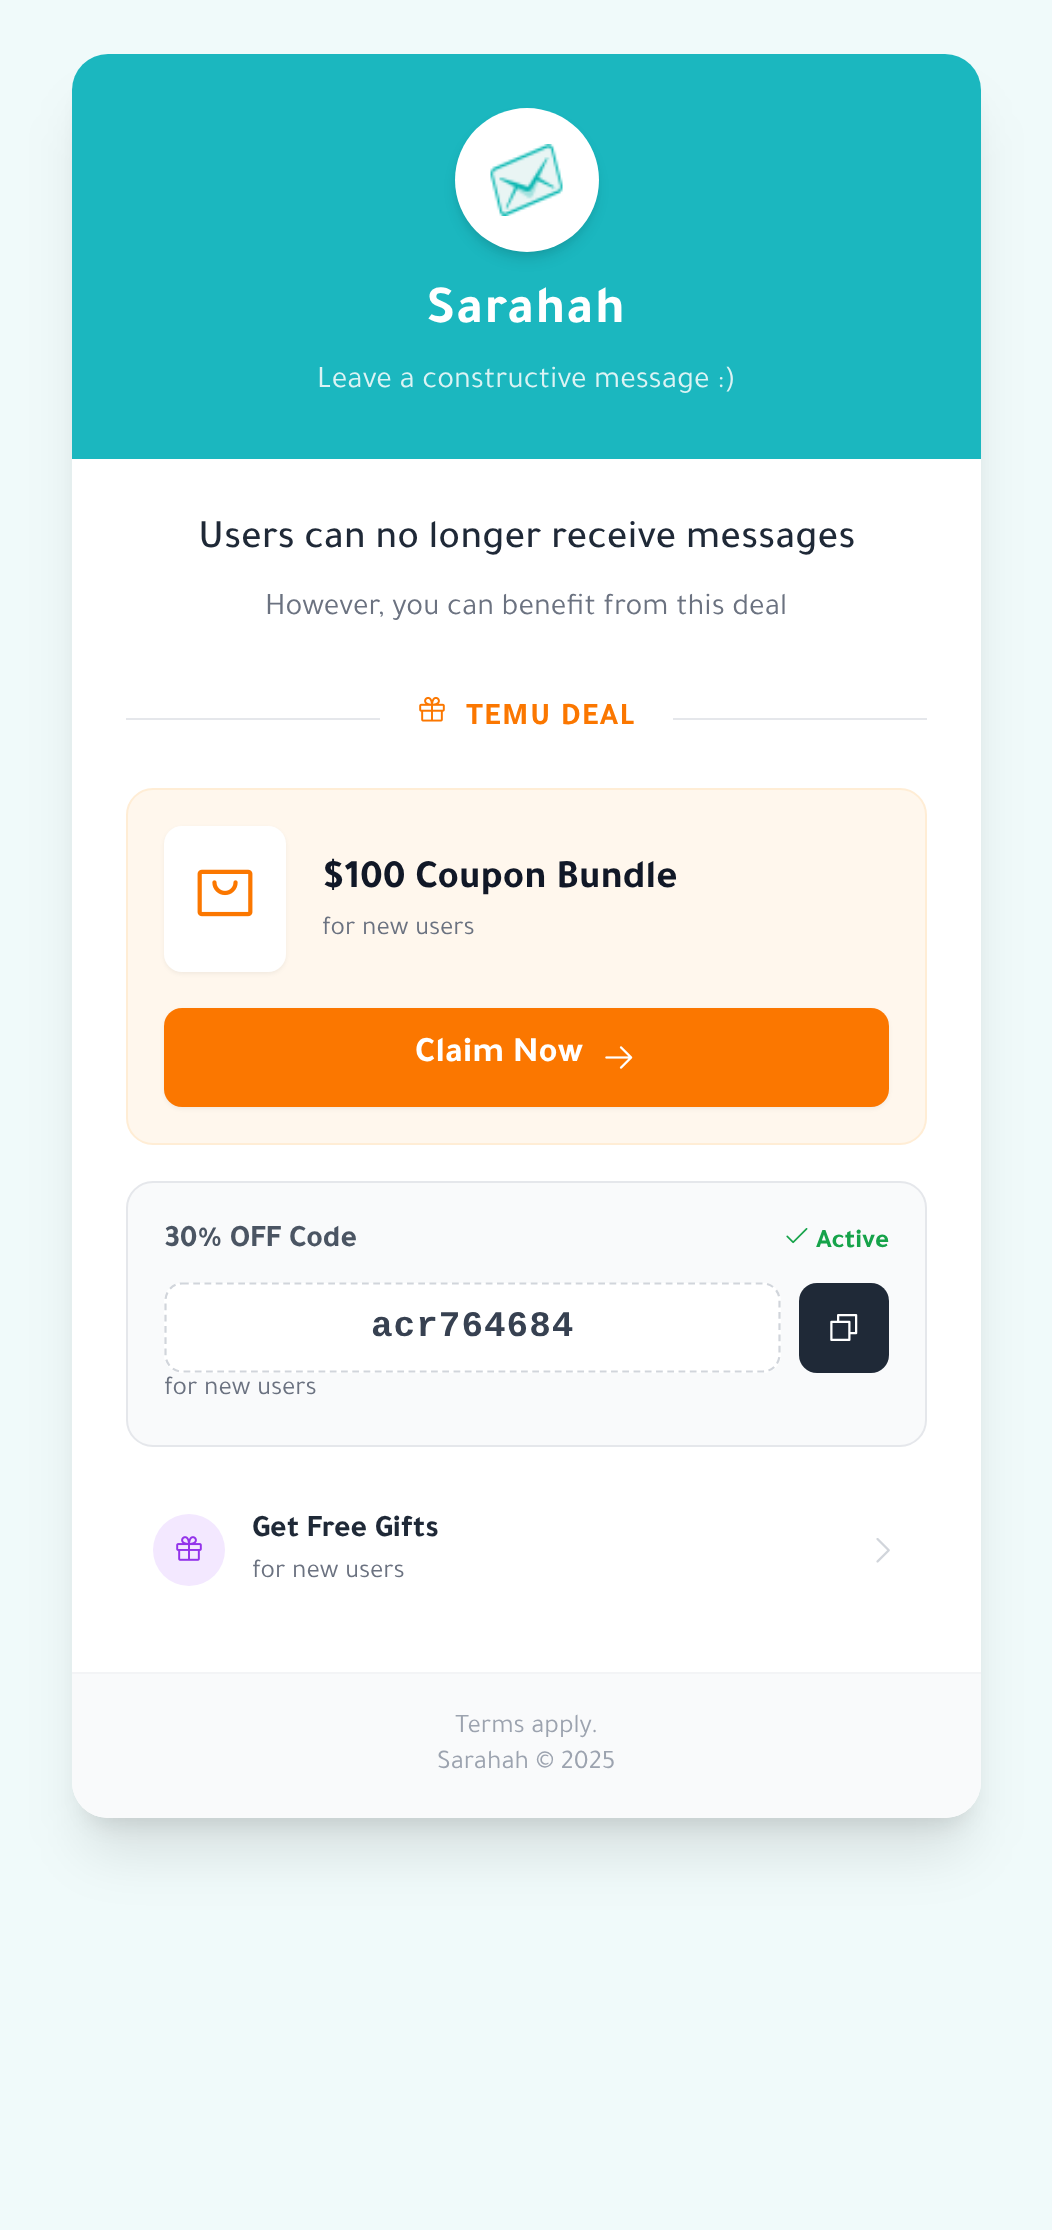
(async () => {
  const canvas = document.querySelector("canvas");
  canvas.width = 1052;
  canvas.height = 2230;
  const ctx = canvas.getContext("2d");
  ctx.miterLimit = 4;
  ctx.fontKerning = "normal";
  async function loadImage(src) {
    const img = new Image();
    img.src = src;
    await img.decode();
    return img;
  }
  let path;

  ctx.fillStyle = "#f0fafa";
  ctx.fillRect(0, 0, 1052, 2230);
  ctx.fillStyle = "rgba(0, 0, 0, 0.1)";
  ctx.filter = "blur(11px)";
  ctx.beginPath();
  ctx.roundRect(86, 86, 882, 1737, 23);
  ctx.fill();
  ctx.filter = "none";
  ctx.filter = "blur(28px)";
  ctx.beginPath();
  ctx.roundRect(83, 110, 887, 1742, 25);
  ctx.fill();
  ctx.filter = "none";
  ctx.fillStyle = "#ffffff";
  ctx.beginPath();
  ctx.roundRect(72, 54, 909, 1764, 36);
  ctx.fill();
  ctx.fillStyle = "#1bb7bf";
  ctx.beginPath();
  ctx.roundRect(72, 54, 909, 405, [36, 36, 0, 0]);
  ctx.fill();
  ctx.fillStyle = "rgba(0, 0, 0, 0.1)";
  ctx.filter = "blur(4.5px)";
  ctx.beginPath();
  ctx.roundRect(459, 117, 135, 135, 67.5);
  ctx.fill();
  ctx.filter = "none";
  ctx.filter = "blur(7px)";
  ctx.beginPath();
  ctx.roundRect(457, 119, 139, 140, 69.5);
  ctx.fill();
  ctx.filter = "none";
  ctx.fillStyle = "#ffffff";
  ctx.beginPath();
  ctx.arc(527, 180, 72, 0, Math.PI * 2);
  ctx.fill();
  ctx.drawImage(await loadImage("img/1.png"), 490, 144, 73, 72);
  ctx.fillStyle = "#e5e7eb";
  ctx.fillRect(126, 718, 254, 2);
  ctx.drawImage(await loadImage("img/2.png"), 419, 696, 26, 26);
  ctx.fillRect(673, 718, 254, 2);
  ctx.fillStyle = "#fff7ed";
  ctx.beginPath();
  ctx.roundRect(127, 789, 799, 355, 26);
  ctx.fill();
  ctx.strokeStyle = "#ffedd5";
  ctx.lineWidth = 2;
  ctx.stroke();
  ctx.fillStyle = "rgba(0, 0, 0, 0.05)";
  ctx.filter = "blur(2px)";
  ctx.beginPath();
  ctx.roundRect(164, 828, 122, 146, 18);
  ctx.fill();
  ctx.filter = "none";
  ctx.fillStyle = "#ffffff";
  ctx.beginPath();
  ctx.roundRect(164, 826, 122, 146, 18);
  ctx.fill();
  ctx.drawImage(await loadImage("img/3.png"), 197, 869, 56, 48);
  ctx.fillStyle = "rgba(0, 0, 0, 0.05)";
  ctx.filter = "blur(2px)";
  ctx.beginPath();
  ctx.roundRect(164, 1010, 725, 99, 18);
  ctx.fill();
  ctx.filter = "none";
  ctx.fillStyle = "#fb7700";
  ctx.beginPath();
  ctx.roundRect(164, 1008, 725, 99, 18);
  ctx.fill();
  ctx.drawImage(await loadImage("img/4.png"), 605, 1046, 28, 23);
  ctx.fillStyle = "#f9fafb";
  ctx.beginPath();
  ctx.roundRect(127, 1182, 799, 264, 26);
  ctx.fill();
  ctx.strokeStyle = "#e5e7eb";
  ctx.stroke();
  ctx.drawImage(await loadImage("img/5.png"), 786, 1228, 22, 16);
  ctx.fillStyle = "#ffffff";
  ctx.beginPath();
  ctx.roundRect(164, 1283, 617, 90, 18);
  ctx.fill();
  path = new Path2D("M182 1283.5H763C772 1283.5 779.5 1291 779.5 1300.5V1354.5C779.5 1364 772 1371.5 763 1371.5H182C173 1371.5 165.5 1364 165.5 1354.5V1300.5C165.5 1291 173 1283.5 182 1283.5Z");
  ctx.strokeStyle = "#d1d5db";
  ctx.lineWidth = 2.2;
  ctx.setLineDash([6.75, 4.5]);
  ctx.stroke(path);
  ctx.fillStyle = "#1f2937";
  ctx.beginPath();
  ctx.roundRect(799, 1283, 90, 90, 18);
  ctx.fill();
  ctx.drawImage(await loadImage("img/6.png"), 830, 1314, 28, 27);
  ctx.fillStyle = "#f3e8ff";
  ctx.beginPath();
  ctx.arc(189, 1550, 36, 0, Math.PI * 2);
  ctx.fill();
  ctx.drawImage(await loadImage("img/7.png"), 176, 1536, 26, 25);
  ctx.drawImage(await loadImage("img/8.png"), 876, 1538, 14, 25);
  ctx.fillStyle = "#f9fafb";
  ctx.beginPath();
  ctx.roundRect(72, 1674, 909, 144, [0, 0, 36, 36]);
  ctx.fill();
  ctx.fillStyle = "#f3f4f6";
  ctx.fillRect(72, 1672, 909, 2);
  ctx.letterSpacing = "1.25px";
  ctx.font = "bold 54px Tajawal";
  ctx.fillStyle = "#ffffff";
  ctx.fillText("Sarahah", 426, 322);
  ctx.letterSpacing = "0px";
  ctx.font = "31.5px Tajawal";
  ctx.fillStyle = "#dbf3f4";
  ctx.fillText("Leave a constructive message :)", 317, 387);
  ctx.font = "500 40.5px Tajawal";
  ctx.fillStyle = "#1f2937";
  ctx.fillText("Users can no longer receive messages", 198, 547);
  ctx.font = "31.5px Tajawal";
  ctx.fillStyle = "#6b7280";
  ctx.fillText("However, you can benefit from this deal", 265, 614);
  ctx.letterSpacing = "1.5px";
  ctx.font = "bold 31.5px Tajawal";
  ctx.fillStyle = "#fb7700";
  ctx.fillText("TEMU DEAL", 466, 724);
  ctx.letterSpacing = "0px";
  ctx.font = "bold 40.5px Tajawal";
  ctx.fillStyle = "#111827";
  ctx.fillText("$100 Coupon Bundle", 322, 887);
  ctx.font = "27px Tajawal";
  ctx.fillStyle = "#6b7280";
  ctx.fillText("for new users", 322, 934);
  ctx.font = "bold 36px Tajawal";
  ctx.fillStyle = "#ffffff";
  ctx.fillText("Claim Now", 415, 1061);
  ctx.font = "bold 31.5px Tajawal";
  ctx.fillStyle = "#4b5563";
  ctx.fillText("30% OFF Code", 164, 1246);
  ctx.font = "bold 27px Tajawal";
  ctx.fillStyle = "#16a34a";
  ctx.fillText("Active", 816, 1247);
  ctx.letterSpacing = "1px";
  ctx.font = "bold 36px Liberation Mono";
  ctx.fillStyle = "#374151";
  ctx.fillText("acr764684", 371, 1336);
  ctx.letterSpacing = "0px";
  ctx.font = "27px Tajawal";
  ctx.fillStyle = "#6b7280";
  ctx.fillText("for new users", 164, 1394);
  ctx.font = "bold 31.5px Tajawal";
  ctx.fillStyle = "#1f2937";
  ctx.fillText("Get Free Gifts", 252, 1536);
  ctx.font = "27px Tajawal";
  ctx.fillStyle = "#6b7280";
  ctx.fillText("for new users", 252, 1577);
  ctx.fillStyle = "#9ca3af";
  ctx.fillText("Terms apply.", 455, 1732);
  ctx.fillText("Sarahah © 2025", 437, 1768);
})();
